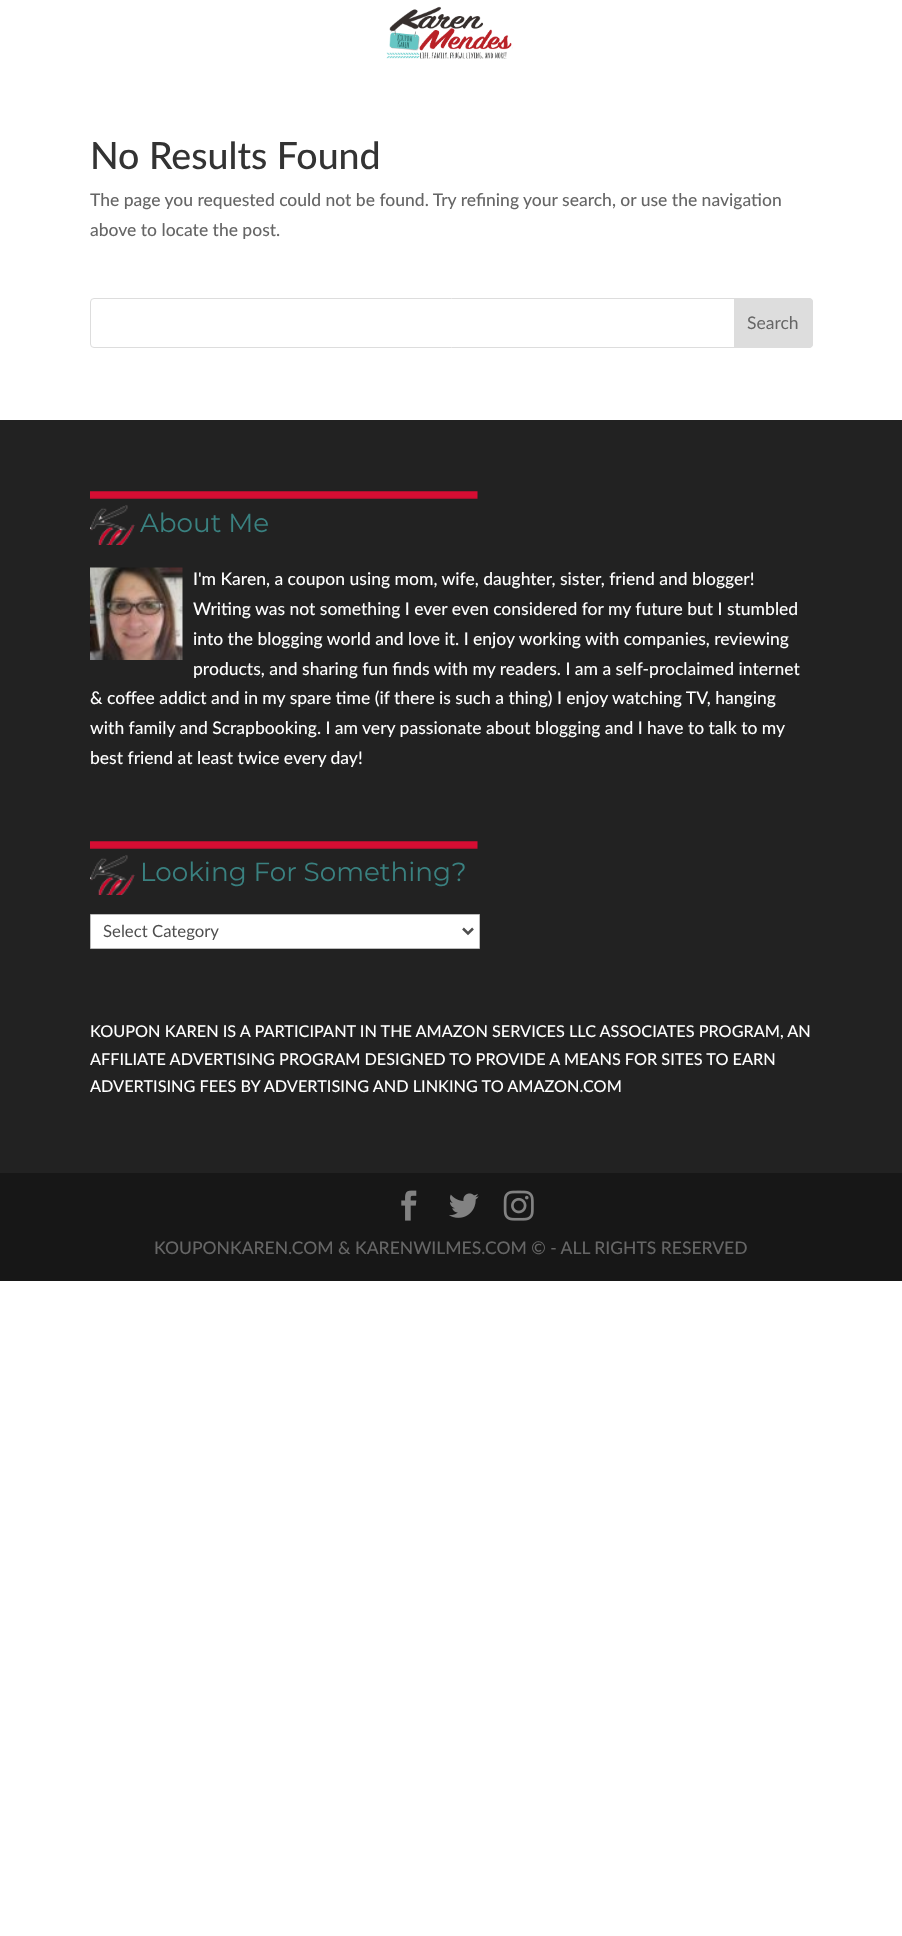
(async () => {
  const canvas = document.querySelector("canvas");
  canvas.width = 902;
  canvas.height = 1936;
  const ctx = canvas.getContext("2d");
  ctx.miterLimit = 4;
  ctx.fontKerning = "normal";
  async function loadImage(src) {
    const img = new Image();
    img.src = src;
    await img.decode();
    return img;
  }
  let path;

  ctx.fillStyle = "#ffffff";
  ctx.fillRect(0, 0, 902, 1936);
  ctx.drawImage(await loadImage("img/1.png"), 386, 6, 127, 53);
  ctx.beginPath();
  ctx.roundRect(90.5, 298.5, 722, 49, 3.5);
  ctx.strokeStyle = "#dddddd";
  ctx.stroke();
  ctx.fillStyle = "#dddddd";
  ctx.beginPath();
  ctx.roundRect(734.5, 298.5, 78, 49, [0, 3.5, 3.5, 0]);
  ctx.fill();
  ctx.stroke();
  ctx.fillStyle = "#222222";
  ctx.fillRect(0, 420, 902, 753);
  ctx.drawImage(await loadImage("img/2.png"), 90, 491, 388, 54);
  ctx.drawImage(await loadImage("img/3.png"), 90, 567, 93, 93);
  ctx.drawImage(await loadImage("img/2.png"), 90, 841, 388, 54);
  ctx.fillStyle = "#ffffff";
  ctx.beginPath();
  ctx.rect(90.5, 914.5, 389, 34);
  ctx.fill();
  ctx.strokeStyle = "#bbbbbb";
  ctx.stroke();
  path = new Path2D("M463 928.5L468 933.5L473 928.5");
  ctx.strokeStyle = "#4e4e4e";
  ctx.lineWidth = 2.5;
  ctx.stroke(path);
  ctx.fillStyle = "#171717";
  ctx.fillRect(0, 1173, 902, 108);
  ctx.drawImage(await loadImage("img/4.png"), 401, 1190, 16, 31);
  ctx.drawImage(await loadImage("img/5.png"), 449, 1193, 30, 25);
  ctx.drawImage(await loadImage("img/6.png"), 503, 1190, 31, 31);
  ctx.font = "500 37.5px Lato";
  ctx.fillStyle = "#333333";
  ctx.fillText("No Results Found", 90, 169);
  ctx.font = "500 17.5px Lato";
  ctx.fillStyle = "#666666";
  ctx.fillText("The page you requested could not be found. Try refining your search, or use the navigation", 90, 206);
  ctx.fillText("above to locate the post.", 90, 236);
  ctx.font = "17.5px Lato";
  ctx.fillText("Search", 747, 329);
  ctx.font = "26.25px Montserrat";
  ctx.fillStyle = "#3a8180";
  ctx.fillText("About Me", 140, 532);
  ctx.font = "500 17.5px Lato";
  ctx.fillStyle = "#ffffff";
  for (const [text, x, y] of [
    ["I'm Karen, a coupon using mom, wife, daughter, sister, friend and blogger!", 193, 585],
    ["Writing was not something I ever even considered for my future but I stumbled", 193, 615],
    ["into the blogging world and love it. I enjoy working with companies, reviewing", 193, 645],
    ["products, and sharing fun finds with my readers. I am a self-proclaimed internet", 193, 675],
    ["& coffee addict and in my spare time (if there is such a thing) I enjoy watching TV, hanging", 90, 704],
    ["with family and Scrapbooking. I am very passionate about blogging and I have to talk to my", 90, 734],
    ["best friend at least twice every day!", 90, 764],
  ]) {
    ctx.fillText(text, x, y);
  }
  ctx.font = "26.25px Montserrat";
  ctx.fillStyle = "#3a8180";
  ctx.fillText("Looking For Something?", 140, 881);
  ctx.font = "16.75px Lato";
  ctx.fillStyle = "#4e4e4e";
  ctx.fillText("Select Category", 103, 937);
  ctx.font = "500 16.25px Lato";
  ctx.fillStyle = "#ffffff";
  for (const [text, x, y] of [
    ["KOUPON KAREN IS A PARTICIPANT IN THE AMAZON SERVICES LLC ASSOCIATES PROGRAM, AN", 90, 1037],
    ["AFFILIATE ADVERTISING PROGRAM DESIGNED TO PROVIDE A MEANS FOR SITES TO EARN", 90, 1065],
    ["ADVERTISING FEES BY ADVERTISING AND LINKING TO AMAZON.COM", 90, 1092],
  ]) {
    ctx.fillText(text, x, y);
  }
  ctx.font = "500 17.5px Lato";
  ctx.fillStyle = "#666666";
  ctx.fillText("KOUPONKAREN.COM & KARENWILMES.COM © - ALL RIGHTS RESERVED", 154, 1254);
})();
